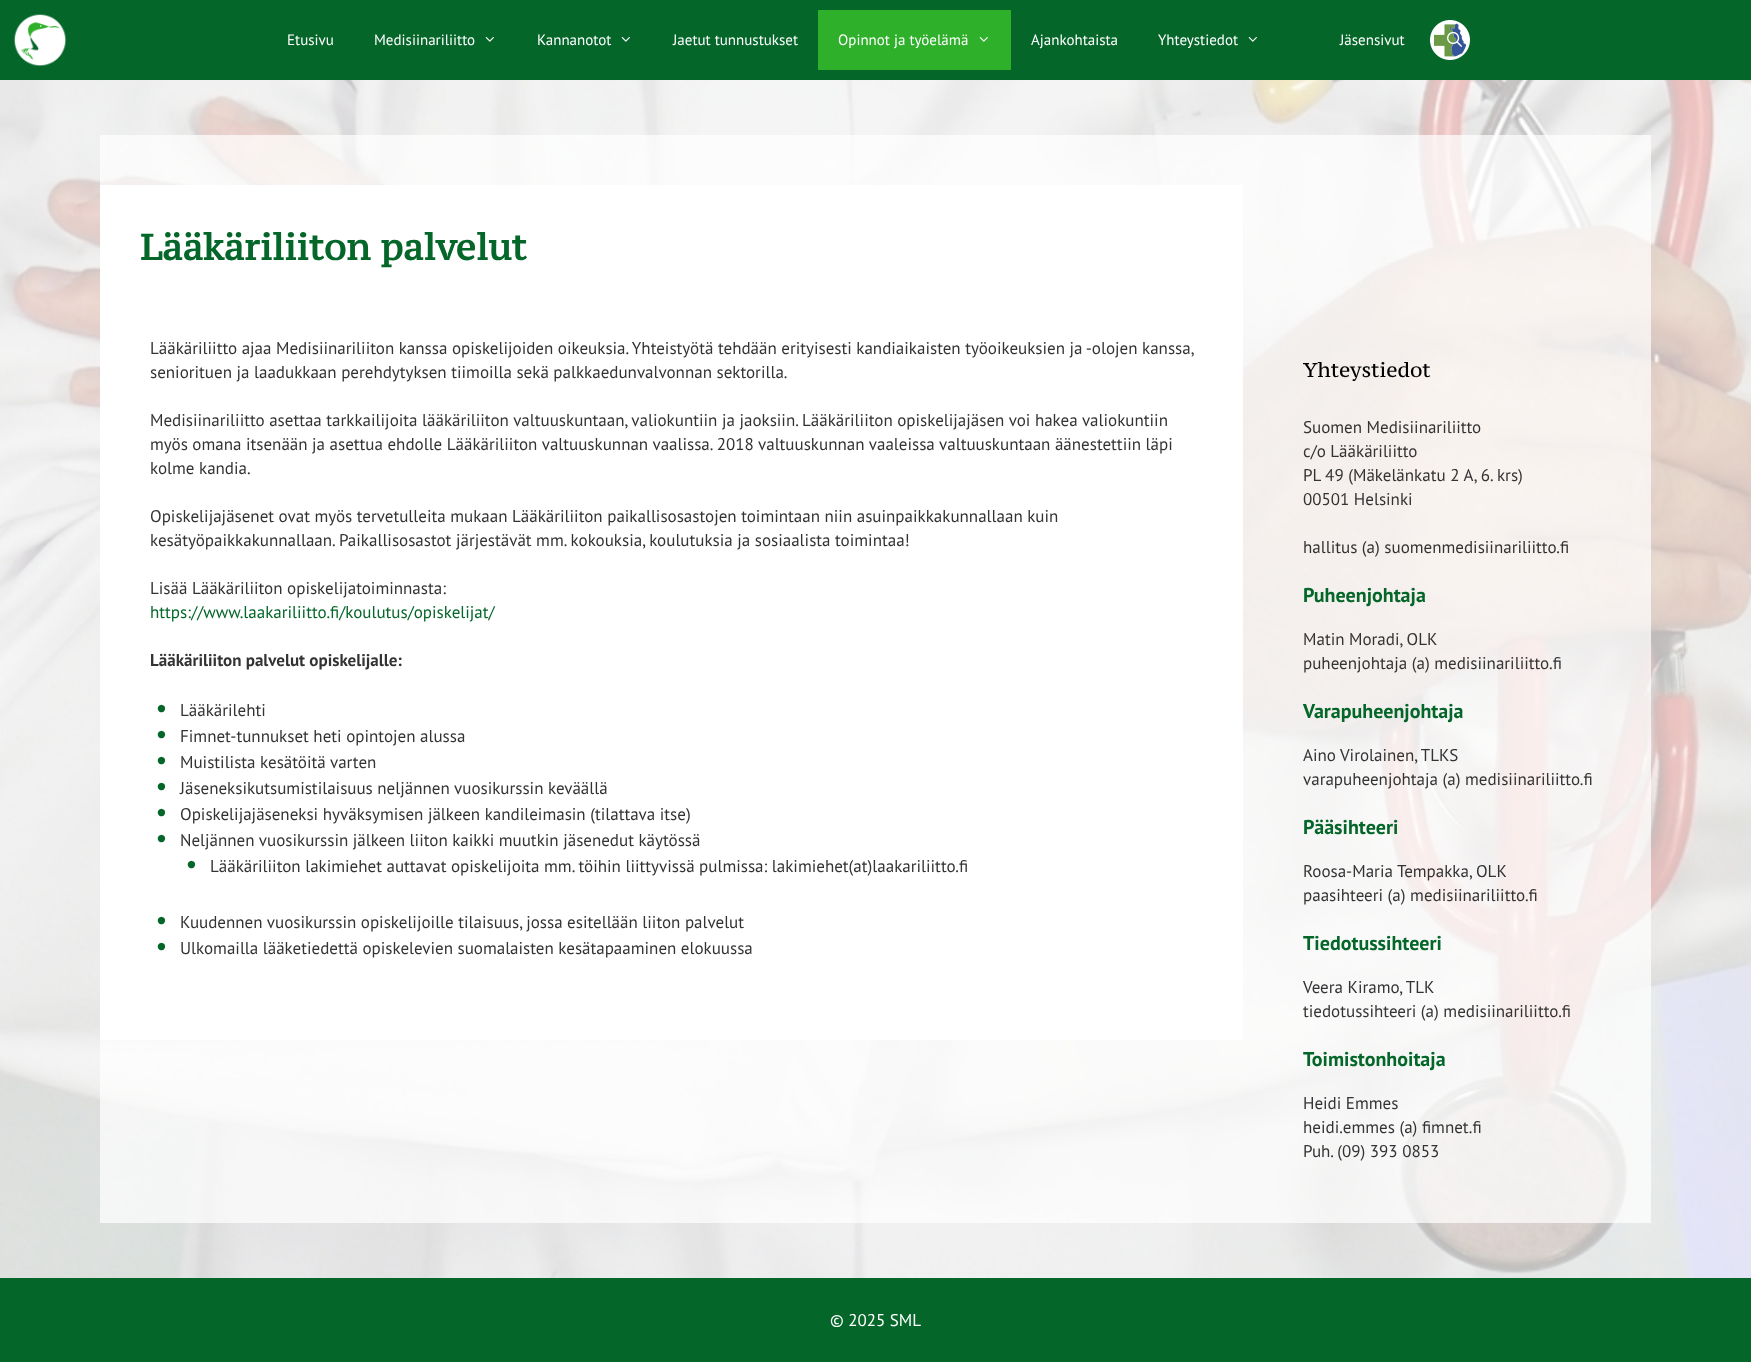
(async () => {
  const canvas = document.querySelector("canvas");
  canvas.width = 1751;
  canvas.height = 1362;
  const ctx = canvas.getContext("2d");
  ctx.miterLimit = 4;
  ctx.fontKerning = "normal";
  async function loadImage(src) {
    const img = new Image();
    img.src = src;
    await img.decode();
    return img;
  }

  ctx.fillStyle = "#ffffff";
  ctx.fillRect(0, 0, 1751, 1362);
  ctx.drawImage(await loadImage("img/1.png"), 0, 80, 1751, 1198);
  ctx.fillStyle = "#046629";
  ctx.fillRect(0, 0, 1751, 80);
  ctx.drawImage(await loadImage("img/2.png"), 14, 14, 53, 53);
  ctx.drawImage(await loadImage("img/3.png"), 1430, 20, 40, 40);
  ctx.drawImage(await loadImage("img/4.png"), 485, 37, 9, 5);
  ctx.drawImage(await loadImage("img/4.png"), 621, 37, 9, 5);
  ctx.fillStyle = "#2eb02a";
  ctx.fillRect(818, 10, 193, 60);
  ctx.drawImage(await loadImage("img/5.png"), 979, 37, 9, 5);
  ctx.drawImage(await loadImage("img/4.png"), 1248, 37, 9, 5);
  ctx.drawImage(await loadImage("img/6.png"), 1447, 31, 15, 16);
  for (const [x, y, w, h, color] of [
    [100, 135, 1551, 1088, "rgba(255, 255, 255, 0.7)"],
    [100, 185, 1143, 855, "#ffffff"],
    [0, 1278, 1751, 84, "#046629"],
  ]) {
    ctx.fillStyle = color;
    ctx.fillRect(x, y, w, h);
  }
  ctx.font = "15px PT Sans";
  ctx.fillStyle = "#ffffff";
  for (const [text, x, y] of [
    ["Etusivu", 287, 45],
    ["Medisiinariliitto", 374, 45],
    ["Kannanotot", 537, 45],
    ["Jaetut tunnustukset", 673, 45],
    ["Opinnot ja työelämä", 838, 45],
    ["Ajankohtaista", 1031, 45],
    ["Yhteystiedot", 1158, 45],
    ["Jäsensivut", 1340, 45],
  ]) {
    ctx.fillText(text, x, y);
  }
  ctx.font = "bold 36px PT Serif Caption";
  ctx.fillStyle = "#046629";
  ctx.fillText("Lääkäriliiton palvelut", 140, 260);
  ctx.font = "17px PT Sans";
  ctx.fillStyle = "#333333";
  for (const [text, x, y] of [
    ["Lääkäriliitto ajaa Medisiinariliiton kanssa opiskelijoiden oikeuksia. Yhteistyötä tehdään erityisesti kandiaikaisten työoikeuksien ja -olojen kanssa,", 150, 354],
    ["seniorituen ja laadukkaan perehdytyksen tiimoilla sekä palkkaedunvalvonnan sektorilla.", 150, 378],
    ["Medisiinariliitto asettaa tarkkailijoita lääkäriliiton valtuuskuntaan, valiokuntiin ja jaoksiin. Lääkäriliiton opiskelijajäsen voi hakea valiokuntiin", 150, 426],
    ["myös omana itsenään ja asettua ehdolle Lääkäriliiton valtuuskunnan vaalissa. 2018 valtuuskunnan vaaleissa valtuuskuntaan äänestettiin läpi", 150, 450],
    ["kolme kandia.", 150, 474],
    ["Opiskelijajäsenet ovat myös tervetulleita mukaan Lääkäriliiton paikallisosastojen toimintaan niin asuinpaikkakunnallaan kuin", 150, 522],
    ["kesätyöpaikkakunnallaan. Paikallisosastot järjestävät mm. kokouksia, koulutuksia ja sosiaalista toimintaa!", 150, 546],
    ["Lisää Lääkäriliiton opiskelijatoiminnasta:", 150, 594],
  ]) {
    ctx.fillText(text, x, y);
  }
  ctx.fillStyle = "#046629";
  ctx.fillText("https://www.laakariliitto.fi/koulutus/opiskelijat/", 150, 618);
  ctx.font = "bold 17px PT Sans";
  ctx.fillStyle = "#333333";
  ctx.fillText("Lääkäriliiton palvelut opiskelijalle:", 150, 666);
  ctx.font = "bold 24px PT Sans";
  ctx.fillStyle = "#046629";
  ctx.fillText("•", 156, 716);
  ctx.font = "17px PT Sans";
  ctx.fillStyle = "#333333";
  ctx.fillText("Lääkärilehti", 180, 716);
  ctx.font = "bold 24px PT Sans";
  ctx.fillStyle = "#046629";
  ctx.fillText("•", 156, 742);
  ctx.font = "17px PT Sans";
  ctx.fillStyle = "#333333";
  ctx.fillText("Fimnet-tunnukset heti opintojen alussa", 180, 742);
  ctx.font = "bold 24px PT Sans";
  ctx.fillStyle = "#046629";
  ctx.fillText("•", 156, 768);
  ctx.font = "17px PT Sans";
  ctx.fillStyle = "#333333";
  ctx.fillText("Muistilista kesätöitä varten", 180, 768);
  ctx.font = "bold 24px PT Sans";
  ctx.fillStyle = "#046629";
  ctx.fillText("•", 156, 794);
  ctx.font = "17px PT Sans";
  ctx.fillStyle = "#333333";
  ctx.fillText("Jäseneksikutsumistilaisuus neljännen vuosikurssin keväällä", 180, 794);
  ctx.font = "bold 24px PT Sans";
  ctx.fillStyle = "#046629";
  ctx.fillText("•", 156, 820);
  ctx.font = "17px PT Sans";
  ctx.fillStyle = "#333333";
  ctx.fillText("Opiskelijajäseneksi hyväksymisen jälkeen kandileimasin (tilattava itse)", 180, 820);
  ctx.font = "bold 24px PT Sans";
  ctx.fillStyle = "#046629";
  ctx.fillText("•", 156, 846);
  ctx.font = "17px PT Sans";
  ctx.fillStyle = "#333333";
  ctx.fillText("Neljännen vuosikurssin jälkeen liiton kaikki muutkin jäsenedut käytössä", 180, 846);
  ctx.font = "bold 24px PT Sans";
  ctx.fillStyle = "#046629";
  ctx.fillText("•", 186, 872);
  ctx.font = "17px PT Sans";
  ctx.fillStyle = "#333333";
  ctx.fillText("Lääkäriliiton lakimiehet auttavat opiskelijoita mm. töihin liittyvissä pulmissa: lakimiehet(at)laakariliitto.fi", 210, 872);
  ctx.font = "bold 24px PT Sans";
  ctx.fillStyle = "#046629";
  ctx.fillText("•", 156, 928);
  ctx.font = "17px PT Sans";
  ctx.fillStyle = "#333333";
  ctx.fillText("Kuudennen vuosikurssin opiskelijoille tilaisuus, jossa esitellään liiton palvelut", 180, 928);
  ctx.font = "bold 24px PT Sans";
  ctx.fillStyle = "#046629";
  ctx.fillText("•", 156, 954);
  ctx.font = "17px PT Sans";
  ctx.fillStyle = "#333333";
  ctx.fillText("Ulkomailla lääketiedettä opiskelevien suomalaisten kesätapaaminen elokuussa", 180, 954);
  ctx.font = "20px PT Serif Caption";
  ctx.fillStyle = "#000000";
  ctx.fillText("Yhteystiedot", 1303, 377);
  ctx.font = "17px PT Sans";
  ctx.fillStyle = "#333333";
  for (const [text, x, y] of [
    ["Suomen Medisiinariliitto", 1303, 433],
    ["c/o Lääkäriliitto", 1303, 457],
    ["PL 49 (Mäkelänkatu 2 A, 6. krs)", 1303, 481],
    ["00501 Helsinki", 1303, 505],
    ["hallitus (a) suomenmedisiinariliitto.fi", 1303, 553],
  ]) {
    ctx.fillText(text, x, y);
  }
  ctx.font = "bold 20px PT Sans";
  ctx.fillStyle = "#046629";
  ctx.fillText("Puheenjohtaja", 1303, 602);
  ctx.font = "17px PT Sans";
  ctx.fillStyle = "#333333";
  ctx.fillText("Matin Moradi, OLK", 1303, 645);
  ctx.fillText("puheenjohtaja (a) medisiinariliitto.fi", 1303, 669);
  ctx.font = "bold 20px PT Sans";
  ctx.fillStyle = "#046629";
  ctx.fillText("Varapuheenjohtaja", 1303, 718);
  ctx.font = "17px PT Sans";
  ctx.fillStyle = "#333333";
  ctx.fillText("Aino Virolainen, TLKS", 1303, 761);
  ctx.fillText("varapuheenjohtaja (a) medisiinariliitto.fi", 1303, 785);
  ctx.font = "bold 20px PT Sans";
  ctx.fillStyle = "#046629";
  ctx.fillText("Pääsihteeri", 1303, 834);
  ctx.font = "17px PT Sans";
  ctx.fillStyle = "#333333";
  ctx.fillText("Roosa-Maria Tempakka, OLK", 1303, 877);
  ctx.fillText("paasihteeri (a) medisiinariliitto.fi", 1303, 901);
  ctx.font = "bold 20px PT Sans";
  ctx.fillStyle = "#046629";
  ctx.fillText("Tiedotussihteeri", 1303, 950);
  ctx.font = "17px PT Sans";
  ctx.fillStyle = "#333333";
  ctx.fillText("Veera Kiramo, TLK", 1303, 993);
  ctx.fillText("tiedotussihteeri (a) medisiinariliitto.fi", 1303, 1017);
  ctx.font = "bold 20px PT Sans";
  ctx.fillStyle = "#046629";
  ctx.fillText("Toimistonhoitaja", 1303, 1066);
  ctx.font = "17px PT Sans";
  ctx.fillStyle = "#333333";
  for (const [text, x, y] of [
    ["Heidi Emmes", 1303, 1109],
    ["heidi.emmes (a) fimnet.fi", 1303, 1133],
    ["Puh. (09) 393 0853", 1303, 1157],
  ]) {
    ctx.fillText(text, x, y);
  }
  ctx.fillStyle = "#ffffff";
  ctx.fillText("© 2025 SML", 830, 1326);
})();
